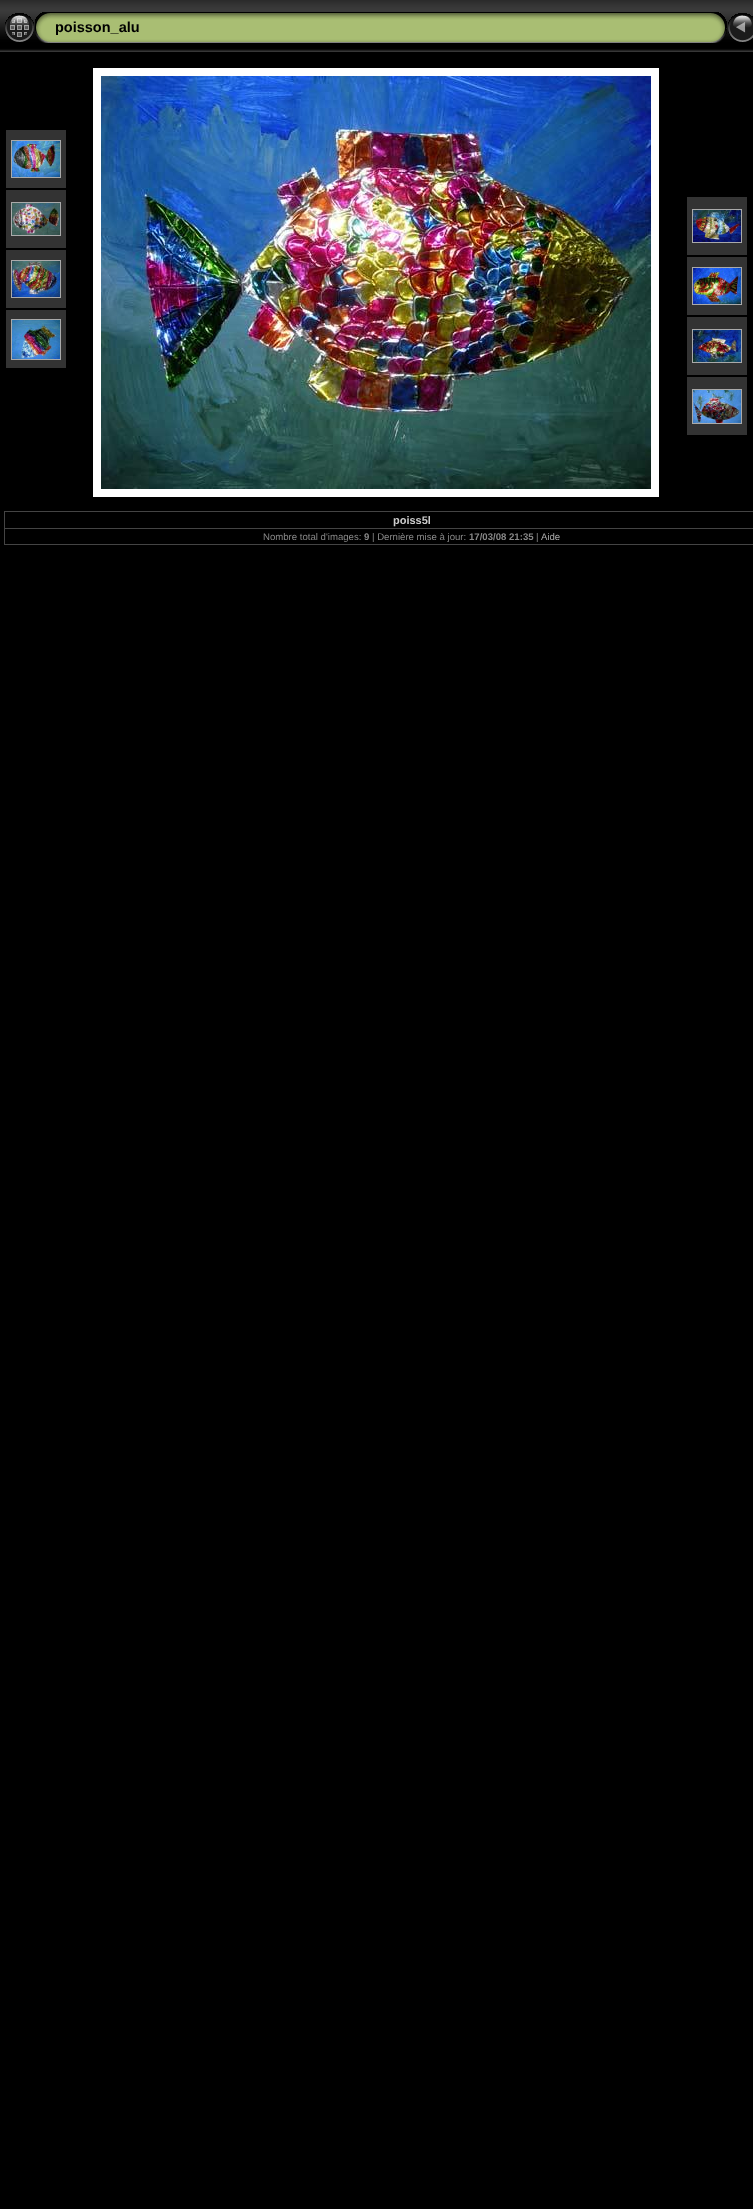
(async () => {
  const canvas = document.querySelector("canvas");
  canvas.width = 753;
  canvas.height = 2209;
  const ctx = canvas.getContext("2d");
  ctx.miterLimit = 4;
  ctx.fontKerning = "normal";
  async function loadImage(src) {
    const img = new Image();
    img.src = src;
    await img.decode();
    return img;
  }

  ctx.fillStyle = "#000000";
  ctx.fillRect(0, 0, 753, 2209);
  ctx.drawImage(await loadImage("img/1.png"), 0, 0, 753, 52);
  ctx.drawImage(await loadImage("img/2.png"), 5, 13, 29, 29);
  ctx.drawImage(await loadImage("img/3.png"), 35, 12, 20, 31);
  ctx.drawImage(await loadImage("img/4.png"), 55, 12, 652, 31);
  ctx.drawImage(await loadImage("img/5.png"), 707, 12, 20, 31);
  ctx.drawImage(await loadImage("img/6.png"), 728, 13, 25, 29);
  ctx.fillStyle = "#333333";
  ctx.fillRect(6, 130, 60, 58);
  ctx.strokeStyle = "#aaaaaa";
  ctx.strokeRect(11.5, 140.5, 49, 37);
  ctx.drawImage(await loadImage("img/7.png"), 12, 141, 48, 36);
  ctx.fillRect(6, 190, 60, 58);
  ctx.strokeRect(11.5, 202.5, 49, 33);
  ctx.drawImage(await loadImage("img/8.png"), 12, 203, 48, 32);
  ctx.fillRect(6, 250, 60, 58);
  ctx.strokeRect(11.5, 260.5, 49, 37);
  ctx.drawImage(await loadImage("img/9.png"), 12, 261, 48, 36);
  ctx.fillRect(6, 310, 60, 58);
  ctx.strokeRect(11.5, 319.5, 49, 40);
  ctx.drawImage(await loadImage("img/10.png"), 12, 320, 48, 39);
  ctx.strokeStyle = "#ffffff";
  ctx.lineWidth = 8;
  ctx.strokeRect(97, 72, 558, 421);
  ctx.drawImage(await loadImage("img/11.png"), 101, 76, 550, 413);
  ctx.fillRect(687, 197, 60, 58);
  ctx.strokeStyle = "#aaaaaa";
  ctx.lineWidth = 1;
  ctx.strokeRect(692.5, 209.5, 49, 33);
  ctx.drawImage(await loadImage("img/12.png"), 693, 210, 48, 32);
  ctx.fillRect(687, 257, 60, 58);
  ctx.strokeRect(692.5, 267.5, 49, 37);
  ctx.drawImage(await loadImage("img/13.png"), 693, 268, 48, 36);
  ctx.fillRect(687, 317, 60, 58);
  ctx.strokeRect(692.5, 329.5, 49, 33);
  ctx.drawImage(await loadImage("img/14.png"), 693, 330, 48, 32);
  ctx.fillRect(687, 377, 60, 58);
  ctx.strokeRect(692.5, 389.5, 49, 34);
  ctx.drawImage(await loadImage("img/15.png"), 693, 390, 48, 33);
  for (const [x, y, w, h, color] of [
    [4, 511, 749, 1, "#444444"],
    [4, 544, 749, 1, "#444444"],
    [4, 511, 1, 34, "#444444"],
    [4, 528, 749, 1, "#444444"],
  ]) {
    ctx.fillStyle = color;
    ctx.fillRect(x, y, w, h);
  }
  ctx.font = "bold 14.5px Liberation Sans";
  ctx.fillStyle = "#000000";
  ctx.fillText("poisson_alu", 55, 32);
  ctx.font = "bold 11px Liberation Sans";
  ctx.fillStyle = "#cccccc";
  ctx.fillText("poiss5l", 393, 524);
  ctx.font = "9.6px Liberation Sans";
  ctx.fillStyle = "#888888";
  ctx.fillText("Nombre total d'images:", 263, 540);
  ctx.font = "bold 9.6px Liberation Sans";
  ctx.fillText("9", 364, 540);
  ctx.font = "9.6px Liberation Sans";
  ctx.fillText("| Dernière mise à jour:", 372, 540);
  ctx.font = "bold 9.6px Liberation Sans";
  ctx.fillText("17/03/08 21:35", 469, 540);
  ctx.font = "9.6px Liberation Sans";
  ctx.fillText("|", 536, 540);
  ctx.fillStyle = "#aaaaaa";
  ctx.fillText("Aide", 541, 540);
})();
